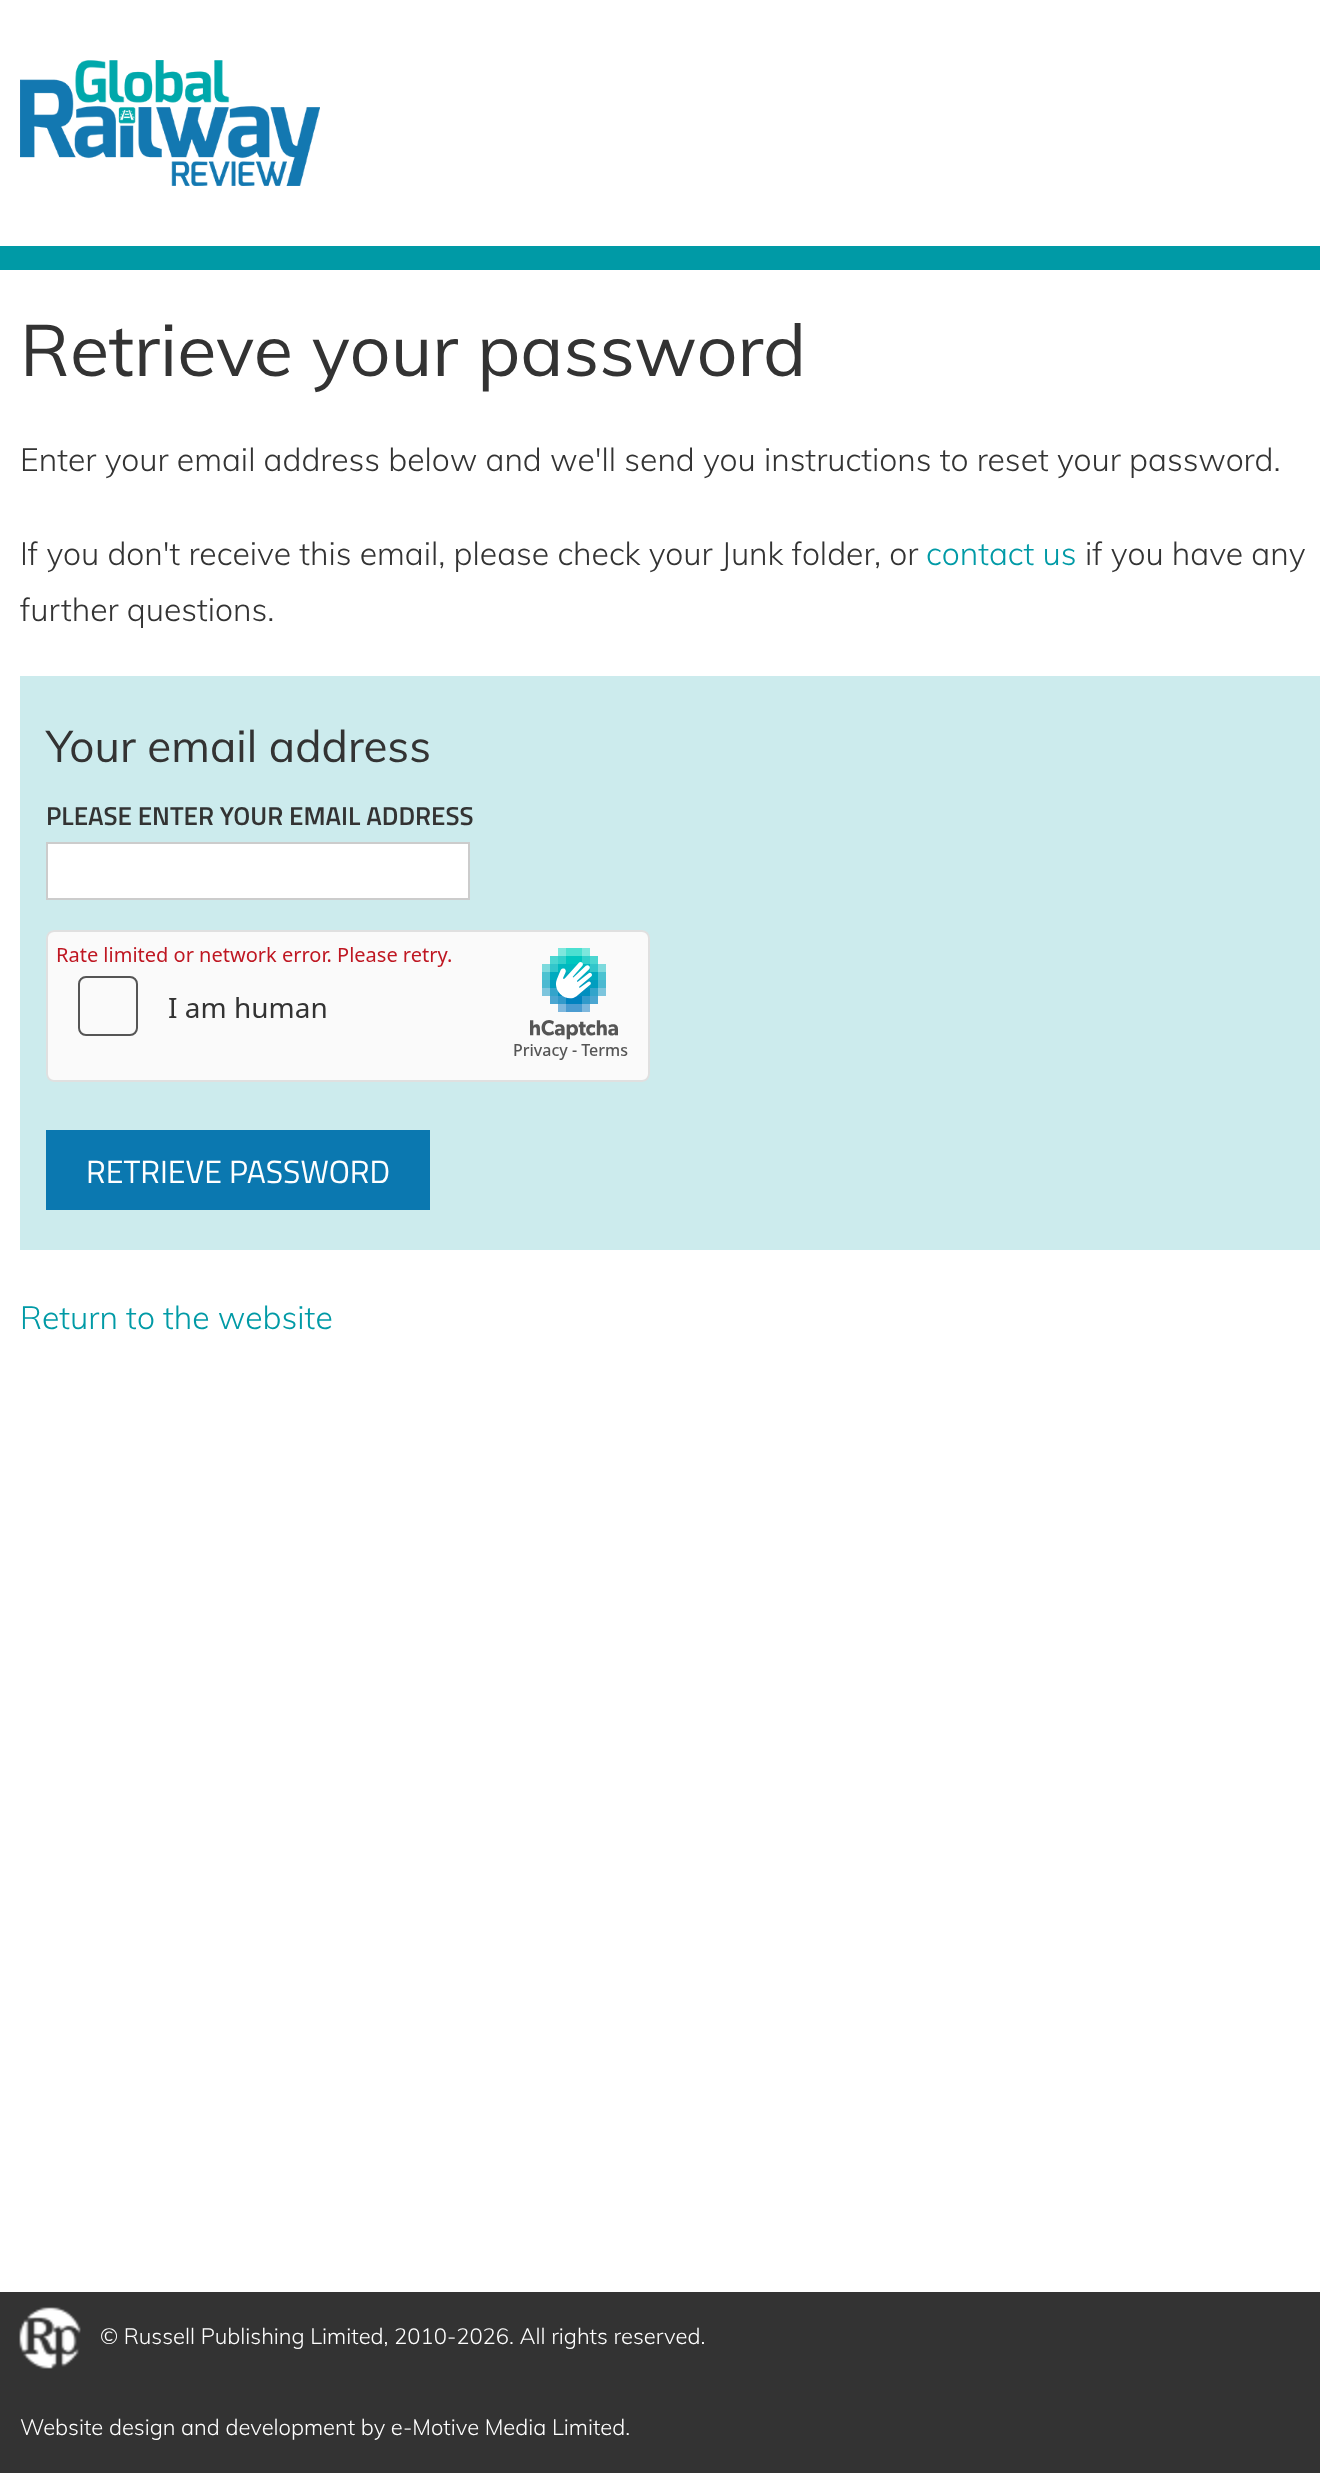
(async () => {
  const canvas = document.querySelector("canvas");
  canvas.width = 1320;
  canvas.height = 2473;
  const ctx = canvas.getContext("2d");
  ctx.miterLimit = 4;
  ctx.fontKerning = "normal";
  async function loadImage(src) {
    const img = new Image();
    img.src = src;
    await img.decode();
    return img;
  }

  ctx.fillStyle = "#ffffff";
  ctx.fillRect(0, 0, 1320, 2473);
  ctx.fillStyle = "#009aa6";
  ctx.fillRect(0, 246, 1320, 24);
  ctx.drawImage(await loadImage("img/1.png"), 20, 60, 300, 126);
  ctx.fillStyle = "#ccebed";
  ctx.fillRect(20, 676, 1300, 574);
  ctx.fillStyle = "#ffffff";
  ctx.beginPath();
  ctx.rect(47, 843, 422, 56);
  ctx.fill();
  ctx.strokeStyle = "#cccccc";
  ctx.lineWidth = 2;
  ctx.stroke();
  ctx.drawImage(await loadImage("img/2.png"), 46, 930, 604, 152);
  ctx.fillStyle = "#0b78b0";
  ctx.fillRect(46, 1130, 384, 80);
  ctx.fillStyle = "#333333";
  ctx.fillRect(0, 2292, 1320, 181);
  ctx.drawImage(await loadImage("img/3.png"), 19, 2307, 62, 62);
  ctx.font = "72px Muli";
  ctx.fillText("Retrieve your password", 20, 376);
  ctx.font = "300 32px Muli";
  ctx.fillText("Enter your email address below and we'll send you instructions to reset your password.", 20, 471);
  ctx.fillText("If you don't receive this email, please check your Junk folder, or", 20, 565);
  ctx.fillStyle = "#009aa6";
  ctx.fillText("contact us", 926, 565);
  ctx.fillStyle = "#333333";
  ctx.fillText("if you have any", 1085, 565);
  ctx.fillText("further questions.", 20, 621);
  ctx.font = "44px Muli";
  ctx.fillText("Your email address", 46, 762);
  ctx.font = "600 26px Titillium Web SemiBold";
  ctx.fillText("PLEASE ENTER YOUR EMAIL ADDRESS", 46, 825);
  ctx.font = "32px Titillium Web";
  ctx.fillStyle = "#ffffff";
  ctx.fillText("RETRIEVE PASSWORD", 86, 1183);
  ctx.font = "300 32px Muli";
  ctx.fillStyle = "#009aa6";
  ctx.fillText("Return to the website", 20, 1329);
  ctx.font = "300 22px Muli";
  ctx.fillStyle = "#ffffff";
  ctx.fillText("© Russell Publishing Limited, 2010-2026. All rights reserved.", 100, 2344);
  ctx.fillText("Website design and development by e-Motive Media Limited.", 20, 2435);
})();
